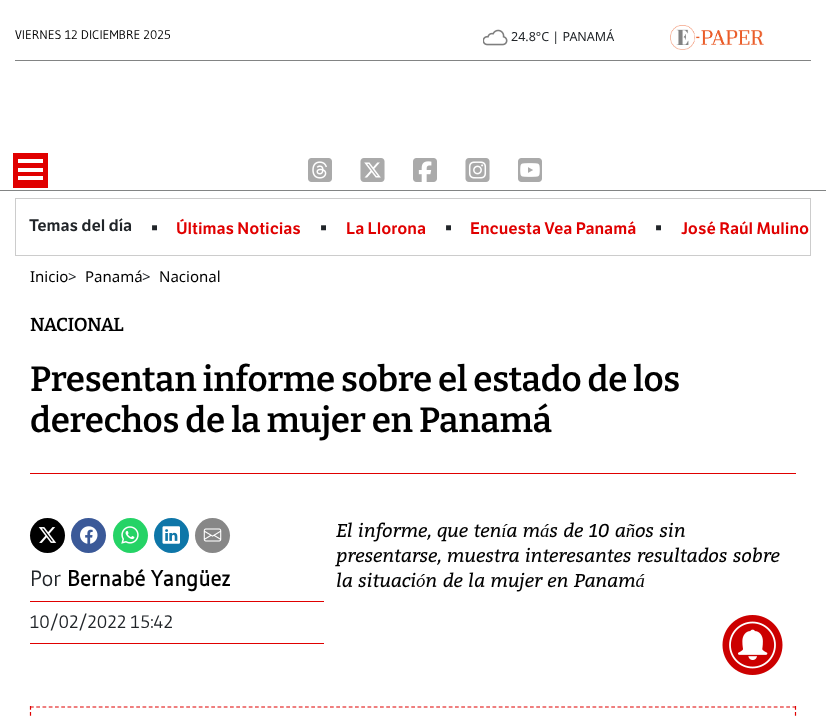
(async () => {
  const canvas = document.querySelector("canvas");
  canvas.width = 826;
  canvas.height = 718;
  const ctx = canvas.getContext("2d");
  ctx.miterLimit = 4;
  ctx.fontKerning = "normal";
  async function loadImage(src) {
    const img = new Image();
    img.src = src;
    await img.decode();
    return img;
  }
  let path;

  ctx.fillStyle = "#ffffff";
  ctx.fillRect(0, 0, 826, 718);
  ctx.fillStyle = "#828484";
  ctx.fillRect(15, 60, 796, 1);
  ctx.drawImage(await loadImage("img/1.png"), 483, 29, 25, 17);
  ctx.drawImage(await loadImage("img/2.png"), 670, 25, 94, 25);
  for (const [x, y, w, h, color] of [
    [0, 190, 826, 1, "#828484"],
    [13, 153, 35, 35, "#e00000"],
    [18, 159, 25, 4, "#ffffff"],
    [18, 168, 25, 4, "#ffffff"],
    [18, 176, 25, 4, "#ffffff"],
  ]) {
    ctx.fillStyle = color;
    ctx.fillRect(x, y, w, h);
  }
  ctx.drawImage(await loadImage("img/3.png"), 308, 158, 24, 24);
  ctx.drawImage(await loadImage("img/4.png"), 360, 158, 25, 24);
  ctx.drawImage(await loadImage("img/5.png"), 413, 158, 24, 24);
  ctx.drawImage(await loadImage("img/6.png"), 465, 158, 25, 24);
  ctx.drawImage(await loadImage("img/7.png"), 518, 158, 24, 24);
  ctx.strokeStyle = "#cccccc";
  ctx.strokeRect(15.5, 198.5, 795, 57);
  ctx.fillStyle = "#e00000";
  ctx.fillRect(30, 473, 766, 1);
  ctx.fillStyle = "#000000";
  ctx.beginPath();
  ctx.arc(47.5, 535.5, 17.5, 0, Math.PI * 2);
  ctx.fill();
  ctx.drawImage(await loadImage("img/8.png"), 38, 527, 19, 16);
  ctx.fillStyle = "#3b5998";
  ctx.beginPath();
  ctx.arc(88.5, 535.5, 17.5, 0, Math.PI * 2);
  ctx.fill();
  ctx.drawImage(await loadImage("img/9.png"), 80, 526, 18, 18);
  ctx.fillStyle = "#25d366";
  ctx.beginPath();
  ctx.arc(130.5, 535.5, 17.5, 0, Math.PI * 2);
  ctx.fill();
  ctx.drawImage(await loadImage("img/10.png"), 121, 526, 18, 18);
  ctx.fillStyle = "#0e76a8";
  ctx.beginPath();
  ctx.arc(171.5, 535.5, 17.5, 0, Math.PI * 2);
  ctx.fill();
  ctx.drawImage(await loadImage("img/11.png"), 162, 526, 18, 18);
  ctx.fillStyle = "#878787";
  ctx.beginPath();
  ctx.arc(212.5, 535.5, 17.5, 0, Math.PI * 2);
  ctx.fill();
  ctx.drawImage(await loadImage("img/12.png"), 203, 528, 19, 14);
  ctx.fillStyle = "#e00000";
  ctx.fillRect(30, 601, 294, 1);
  ctx.fillRect(30, 643, 294, 1);
  path = new Path2D("M30 707H796");
  ctx.strokeStyle = "#e00000";
  ctx.lineWidth = 1.2;
  ctx.setLineDash([3.75, 2.5]);
  ctx.stroke(path);
  path = new Path2D("M795.5 706V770");
  ctx.setLineDash([3.75, 2.25]);
  ctx.stroke(path);
  path = new Path2D("M30.5 706V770");
  ctx.stroke(path);
  ctx.drawImage(await loadImage("img/13.png"), 722, 615, 61, 60);
  ctx.font = "12.5px Gudea";
  ctx.fillStyle = "#000000";
  ctx.fillText("VIERNES 12 DICIEMBRE 2025", 15, 39);
  ctx.font = "12.5px Noto Sans";
  ctx.fillStyle = "#212529";
  ctx.fillText("24.8°C | PANAMÁ", 511, 41);
  ctx.font = "600 16.25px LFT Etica";
  ctx.fillText("Temas del día", 29, 231);
  ctx.font = "20px Liberation Sans";
  ctx.fillText("▪", 151, 234);
  ctx.font = "600 16.25px LFT Etica";
  ctx.fillStyle = "#e00000";
  ctx.fillText("Últimas Noticias", 176, 234);
  ctx.font = "20px Liberation Sans";
  ctx.fillStyle = "#212529";
  ctx.fillText("▪", 320, 234);
  ctx.font = "600 16.25px LFT Etica";
  ctx.fillStyle = "#e00000";
  ctx.fillText("La Llorona", 346, 234);
  ctx.font = "20px Liberation Sans";
  ctx.fillStyle = "#212529";
  ctx.fillText("▪", 445, 234);
  ctx.font = "600 16.25px LFT Etica";
  ctx.fillStyle = "#e00000";
  ctx.fillText("Encuesta Vea Panamá", 470, 234);
  ctx.font = "20px Liberation Sans";
  ctx.fillStyle = "#212529";
  ctx.fillText("▪", 655, 234);
  ctx.font = "600 16.25px LFT Etica";
  ctx.fillStyle = "#e00000";
  ctx.fillText("José Raúl Mulino", 681, 234);
  ctx.font = "15px Noto Sans";
  ctx.fillStyle = "#000000";
  ctx.fillText("Inicio", 30, 282);
  ctx.fillStyle = "#212529";
  ctx.fillText(">", 68, 282);
  ctx.fillStyle = "#000000";
  ctx.fillText("Panamá", 85, 282);
  ctx.fillStyle = "#212529";
  ctx.fillText(">", 142, 282);
  ctx.fillStyle = "#000000";
  ctx.fillText("Nacional", 159, 282);
  ctx.letterSpacing = "-0.5px";
  ctx.font = "600 18.75px Bitter";
  ctx.fillText("NACIONAL", 30, 331);
  ctx.letterSpacing = "-0.3px";
  ctx.font = "600 35px Bitter";
  ctx.fillText("Presentan informe sobre el estado de los", 30, 391);
  ctx.fillText("derechos de la mujer en Panamá", 30, 432);
  ctx.letterSpacing = "-0.2px";
  ctx.font = "italic 18.75px Bitter";
  for (const [text, x, y] of [
    ["El informe, que tenía más de 10 años sin", 336, 537],
    ["presentarse, muestra interesantes resultados sobre", 336, 562],
    ["la situación de la mujer en Panamá", 336, 587],
  ]) {
    ctx.fillText(text, x, y);
  }
  ctx.letterSpacing = "0px";
  ctx.font = "22px Gudea";
  ctx.fillStyle = "#212529";
  ctx.fillText("Por", 30, 586);
  ctx.font = "bold 22px Gudea";
  ctx.fillStyle = "#000000";
  ctx.fillText("Bernabé Yangüez", 67, 586);
  ctx.font = "18px Gudea";
  ctx.fillStyle = "#212529";
  ctx.fillText("10/02/2022 15:42", 30, 628);
})();
